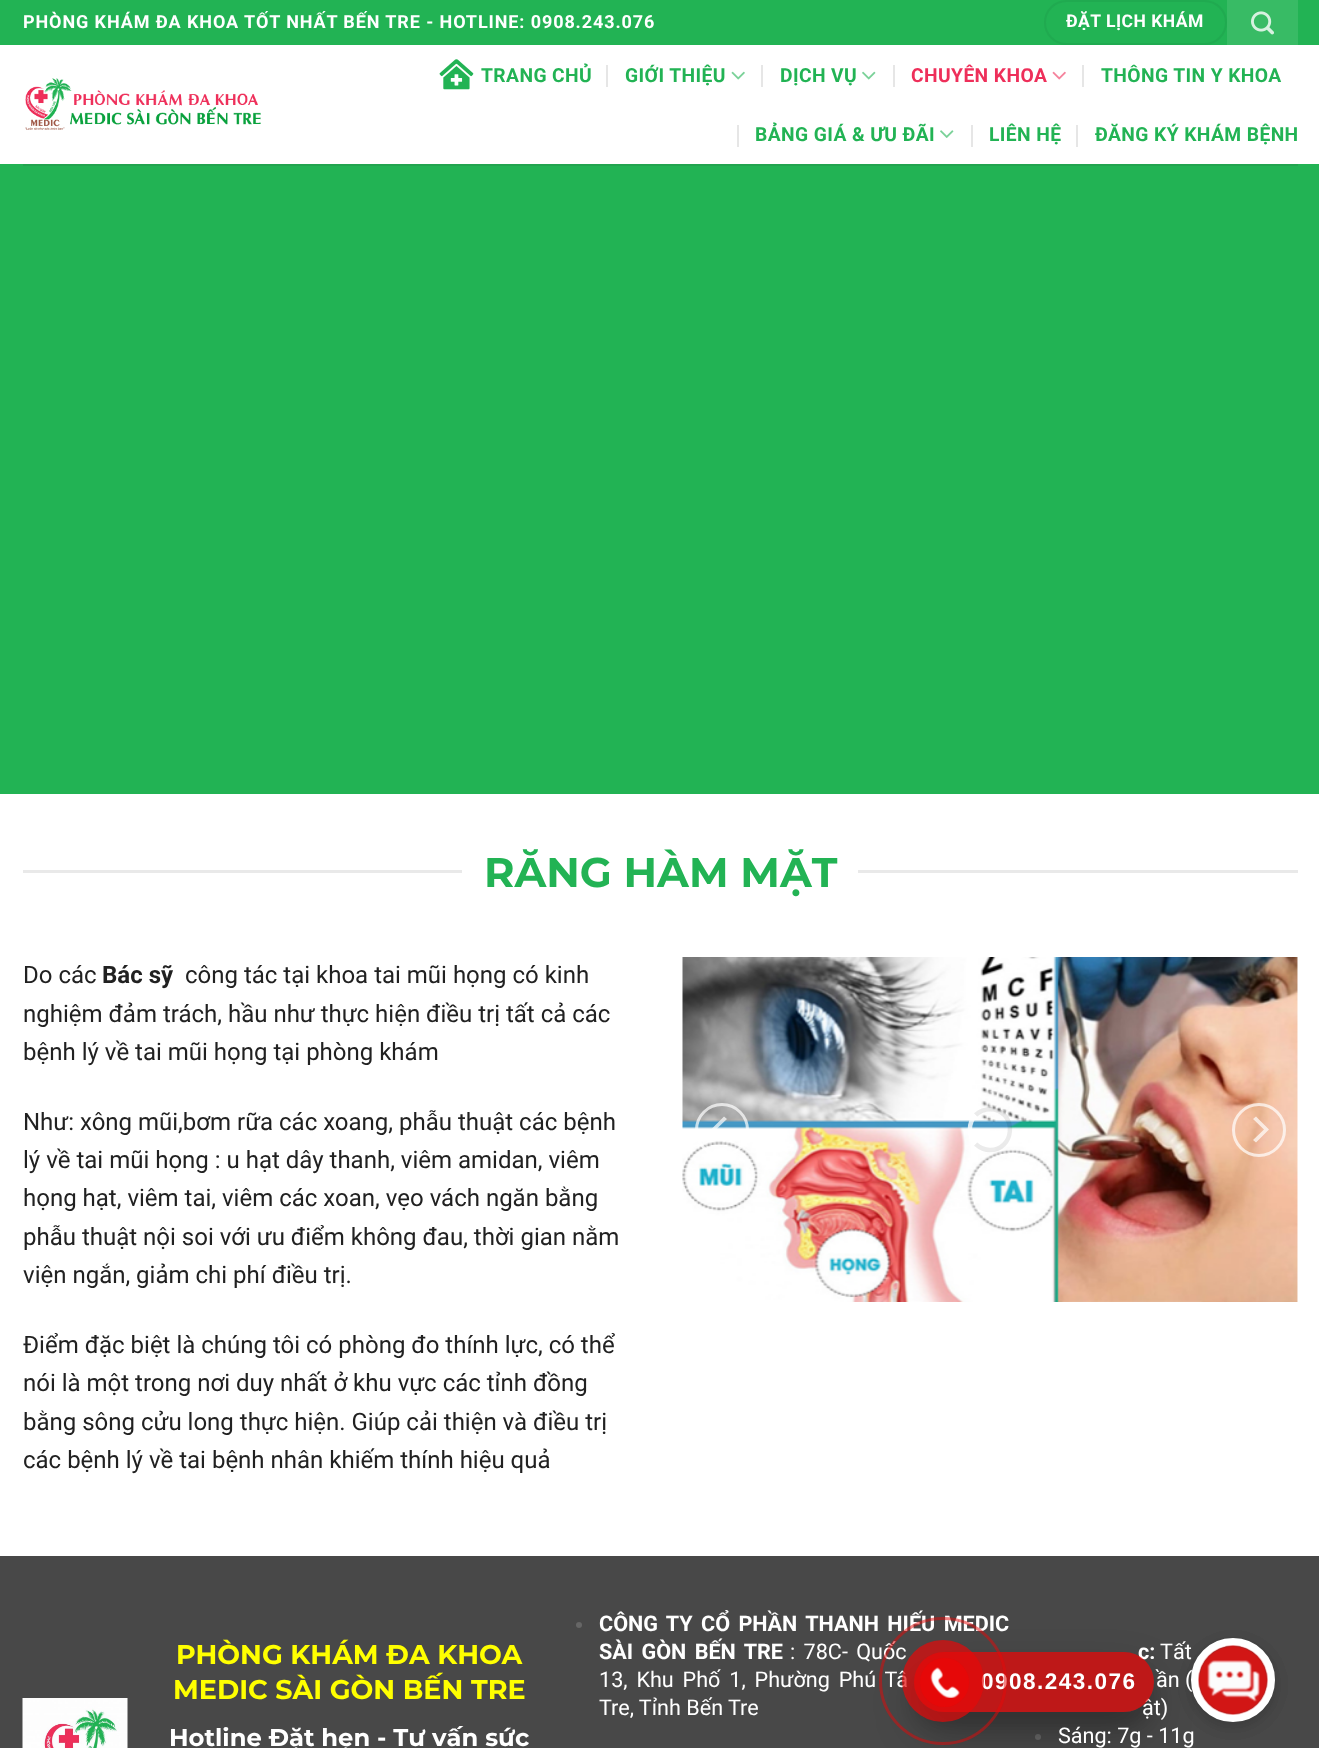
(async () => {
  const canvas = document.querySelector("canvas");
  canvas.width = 1319;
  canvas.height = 1748;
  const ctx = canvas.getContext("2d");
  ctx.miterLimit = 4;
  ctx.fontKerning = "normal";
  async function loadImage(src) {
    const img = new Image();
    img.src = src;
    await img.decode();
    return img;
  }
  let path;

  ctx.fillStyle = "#ffffff";
  ctx.fillRect(0, 0, 1319, 1748);
  ctx.fillStyle = "#22b354";
  ctx.fillRect(0, 0, 1319, 45);
  ctx.beginPath();
  ctx.roundRect(1045, 1, 181, 43, 21.5);
  ctx.strokeStyle = "#20aa50";
  ctx.lineWidth = 2;
  ctx.stroke();
  ctx.fillStyle = "#38bb65";
  ctx.fillRect(1227, 0, 71, 45);
  ctx.drawImage(await loadImage("img/1.png"), 1251, 11, 23, 24);
  ctx.drawImage(await loadImage("img/2.png"), 25, 78, 236, 52);
  ctx.drawImage(await loadImage("img/3.png"), 439, 59, 35, 31);
  ctx.fillStyle = "#e6e6e6";
  ctx.fillRect(606, 65, 2, 22);
  ctx.drawImage(await loadImage("img/4.png"), 731, 71, 14, 9);
  ctx.fillRect(761, 65, 2, 22);
  ctx.drawImage(await loadImage("img/5.png"), 862, 71, 14, 9);
  ctx.fillRect(893, 65, 2, 22);
  ctx.drawImage(await loadImage("img/6.png"), 1052, 71, 14, 9);
  ctx.fillRect(1082, 65, 2, 22);
  ctx.fillRect(737, 125, 2, 22);
  ctx.drawImage(await loadImage("img/7.png"), 940, 130, 14, 8);
  for (const [x, y, w, h, color] of [
    [971, 125, 2, 22, "#e6e6e6"],
    [1076, 125, 2, 22, "#e6e6e6"],
    [0, 164, 1319, 630, "#22b354"],
    [23, 164, 1275, 2, "#22a44f"],
    [23, 870, 439, 3, "#e9e9e9"],
    [858, 870, 440, 3, "#e9e9e9"],
  ]) {
    ctx.fillStyle = color;
    ctx.fillRect(x, y, w, h);
  }
  ctx.drawImage(await loadImage("img/8.png"), 682, 957, 616, 345);
  ctx.beginPath();
  ctx.arc(722, 1130, 25.5, 0, Math.PI * 2);
  ctx.strokeStyle = "rgba(255, 255, 255, 0.7)";
  ctx.lineWidth = 3;
  ctx.stroke();
  ctx.fillStyle = "rgba(255, 255, 255, 0.7)";
  path = new Path2D("M711 1129.5L724 1142.5L727 1140L716 1129.5L727 1119L724 1116.5Z");
  ctx.fill(path);
  ctx.beginPath();
  ctx.arc(1259, 1130, 25.5, 0, Math.PI * 2);
  ctx.stroke();
  path = new Path2D("M1269 1129.5L1256 1116.5L1253 1119L1264 1129.5L1253 1140L1256 1142.5Z");
  ctx.fill(path);
  path = new Path2D("M975.5 1115C980.5 1110.5 987.5 1108.5 994 1109.5C1017.5 1114.5 1014 1150 990 1150C984.5 1150 979.5 1147.5 975.5 1144");
  ctx.strokeStyle = "rgba(0, 0, 0, 0.08)";
  ctx.lineWidth = 4.5;
  ctx.stroke(path);
  path = new Path2D("M975.5 1144C968 1136 968 1123 975.5 1115");
  ctx.strokeStyle = "rgba(255, 255, 255, 0.8)";
  ctx.stroke(path);
  ctx.fillStyle = "#484848";
  ctx.fillRect(0, 1556, 1319, 192);
  ctx.drawImage(await loadImage("img/9.png"), 22, 1698, 106, 50);
  ctx.fillStyle = "#666666";
  ctx.beginPath();
  ctx.arc(579, 1625, 3, 0, Math.PI * 2);
  ctx.fill();
  ctx.beginPath();
  ctx.arc(1038, 1737, 3, 0, Math.PI * 2);
  ctx.fill();
  ctx.save();
  path = new Path2D("M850 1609H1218V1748H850ZM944 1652H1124C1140.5 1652 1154 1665.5 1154 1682C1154 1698.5 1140.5 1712 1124 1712H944C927.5 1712 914 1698.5 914 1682C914 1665.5 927.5 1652 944 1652Z");
  ctx.clip(path, "evenodd");
  ctx.fillStyle = "rgba(0, 0, 0, 0.25)";
  ctx.filter = "blur(21px)";
  ctx.beginPath();
  ctx.roundRect(914, 1673, 240, 60, 30);
  ctx.fill();
  ctx.filter = "none";
  ctx.restore();
  ctx.drawImage(await loadImage("img/12.png"), 1203, 1648, 21, 19);
  ctx.fillStyle = "rgba(0, 0, 0, 0.08)";
  ctx.filter = "blur(7.5px)";
  ctx.beginPath();
  ctx.roundRect(1191, 1643, 84, 84, 42);
  ctx.fill();
  ctx.filter = "none";
  ctx.filter = "blur(7.5px)";
  ctx.beginPath();
  ctx.roundRect(1191, 1643, 84, 84, 42);
  ctx.fill();
  ctx.filter = "none";
  ctx.fillStyle = "rgba(0, 0, 0, 0.04)";
  ctx.filter = "blur(7.5px)";
  ctx.beginPath();
  ctx.roundRect(1196, 1647, 72, 72, 36);
  ctx.fill();
  ctx.filter = "none";
  ctx.beginPath();
  ctx.arc(1233, 1680, 38, 0, Math.PI * 2);
  ctx.strokeStyle = "#ffffff";
  ctx.lineWidth = 8;
  ctx.stroke();
  ctx.drawImage(await loadImage("img/10.png"), 1198, 1645, 70, 70);
  ctx.save();
  path = new Path2D("M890 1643H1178V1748H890ZM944 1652H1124C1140.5 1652 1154 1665.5 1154 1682C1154 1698.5 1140.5 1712 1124 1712H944C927.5 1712 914 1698.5 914 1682C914 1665.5 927.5 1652 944 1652Z");
  ctx.clip(path, "evenodd");
  ctx.fillStyle = "rgba(0, 0, 0, 0.1)";
  ctx.filter = "blur(7.5px)";
  ctx.beginPath();
  ctx.roundRect(914, 1667, 240, 60, 30);
  ctx.fill();
  ctx.filter = "none";
  ctx.restore();
  ctx.letterSpacing = "0.9px";
  ctx.font = "bold 18px Roboto";
  ctx.fillStyle = "#ffffff";
  ctx.fillText("PHÒNG KHÁM ĐA KHOA TỐT NHẤT BẾN TRE - HOTLINE: 0908.243.076", 23, 28);
  ctx.letterSpacing = "0.5px";
  ctx.font = "bold 17.5px Roboto";
  ctx.fillText("ĐẶT LỊCH KHÁM", 1066, 27);
  ctx.letterSpacing = "0.4px";
  ctx.font = "bold 19.25px Roboto";
  ctx.fillStyle = "#22b354";
  for (const [text, x, y] of [
    ["TRANG CHỦ", 481, 82],
    ["GIỚI THIỆU", 625, 82],
    ["DỊCH VỤ", 780, 82],
  ]) {
    ctx.fillText(text, x, y);
  }
  ctx.fillStyle = "#ee2f5a";
  ctx.fillText("CHUYÊN KHOA", 911, 82);
  ctx.fillStyle = "#22b354";
  for (const [text, x, y] of [
    ["THÔNG TIN Y KHOA", 1101, 82],
    ["BẢNG GIÁ & ƯU ĐÃI", 755, 141],
    ["LIÊN HỆ", 989, 141],
    ["ĐĂNG KÝ KHÁM BỆNH", 1095, 141],
  ]) {
    ctx.fillText(text, x, y);
  }
  ctx.letterSpacing = "0px";
  ctx.font = "bold 41.5px Montserrat";
  ctx.fillText("RĂNG HÀM MẶT", 484, 887);
  ctx.font = "24px Roboto";
  ctx.fillStyle = "#212121";
  ctx.fillText("Do các", 23, 983);
  ctx.font = "bold 24px Roboto";
  ctx.fillText("Bác sỹ", 102, 983);
  ctx.font = "24px Roboto";
  for (const [text, x, y] of [
    ["công tác tại khoa tai mũi họng có kinh", 185, 983],
    ["nghiệm đảm trách, hầu như thực hiện điều trị tất cả các", 23, 1022],
    ["bệnh lý về tai mũi họng tại phòng khám", 23, 1060],
    ["Như: xông mũi,bơm rữa các xoang, phẫu thuật các bệnh", 23, 1130],
    ["lý về tai mũi họng : u hạt dây thanh, viêm amidan, viêm", 23, 1168],
    ["họng hạt, viêm tai, viêm các xoan, vẹo vách ngăn bằng", 23, 1206],
    ["phẫu thuật nội soi với ưu điểm không đau, thời gian nằm", 23, 1245],
    ["viện ngắn, giảm chi phí điều trị.", 23, 1283],
    ["Điểm đặc biệt là chúng tôi có phòng đo thính lực, có thể", 23, 1353],
    ["nói là một trong nơi duy nhất ở khu vực các tỉnh đồng", 23, 1391],
    ["bằng sông cửu long thực hiện. Giúp cải thiện và điều trị", 23, 1430],
    ["các bệnh lý về tai bệnh nhân khiếm thính hiệu quả", 23, 1468],
  ]) {
    ctx.fillText(text, x, y);
  }
  ctx.font = "bold 27px Montserrat";
  ctx.fillStyle = "#ffff00";
  ctx.fillText("PHÒNG KHÁM ĐA KHOA", 176, 1664);
  ctx.fillText("MEDIC SÀI GÒN BẾN TRE", 173, 1699);
  ctx.font = "bold 24.25px Montserrat";
  ctx.fillStyle = "#ffffff";
  ctx.fillText("Hotline Đặt hẹn - Tư vấn sức", 169, 1746);
  ctx.wordSpacing = "3px";
  ctx.font = "bold 21.6px Roboto";
  ctx.fillText("CÔNG TY CỔ PHẦN THANH HIẾU MEDIC", 599, 1631);
  ctx.fillText("SÀI GÒN BẾN TRE", 599, 1659);
  ctx.font = "21.6px Roboto";
  ctx.fillText(": 78C- Quốc", 790, 1659);
  ctx.wordSpacing = "3.5px";
  ctx.fillText("13, Khu Phố 1, Phường Phú Tâ", 599, 1687);
  ctx.wordSpacing = "0px";
  ctx.fillText("Tre, Tỉnh Bến Tre", 599, 1715);
  ctx.font = "bold 21.6px Roboto";
  ctx.fillText("c:", 1138, 1659);
  ctx.font = "21.6px Roboto";
  for (const [text, x, y] of [
    ["Tất", 1160, 1659],
    ["ần (", 1156, 1687],
    ["ật)", 1142, 1715],
    ["Sáng: 7g - 11g", 1058, 1743],
  ]) {
    ctx.fillText(text, x, y);
  }
  ctx.fillStyle = "rgba(230, 8, 8, 0.75)";
  ctx.beginPath();
  ctx.roundRect(914, 1652, 240, 60, 30);
  ctx.fill();
  ctx.letterSpacing = "1.5px";
  ctx.font = "bold 22.5px Liberation Sans";
  ctx.fillStyle = "#ffffff";
  ctx.fillText("0908.243.076", 981, 1689);
  ctx.beginPath();
  ctx.arc(943, 1681, 62.5, 0, Math.PI * 2);
  ctx.strokeStyle = "rgba(230, 8, 8, 0.5)";
  ctx.lineWidth = 3;
  ctx.stroke();
  ctx.fillStyle = "rgba(230, 8, 8, 0.7)";
  ctx.beginPath();
  ctx.arc(943, 1681, 41, 0, Math.PI * 2);
  ctx.fill();
  ctx.fillStyle = "#e60808";
  ctx.beginPath();
  ctx.arc(944.5, 1682.5, 24.5, 0, Math.PI * 2);
  ctx.fill();
  ctx.drawImage(await loadImage("img/11.png"), 930, 1667, 30, 31);
})();
